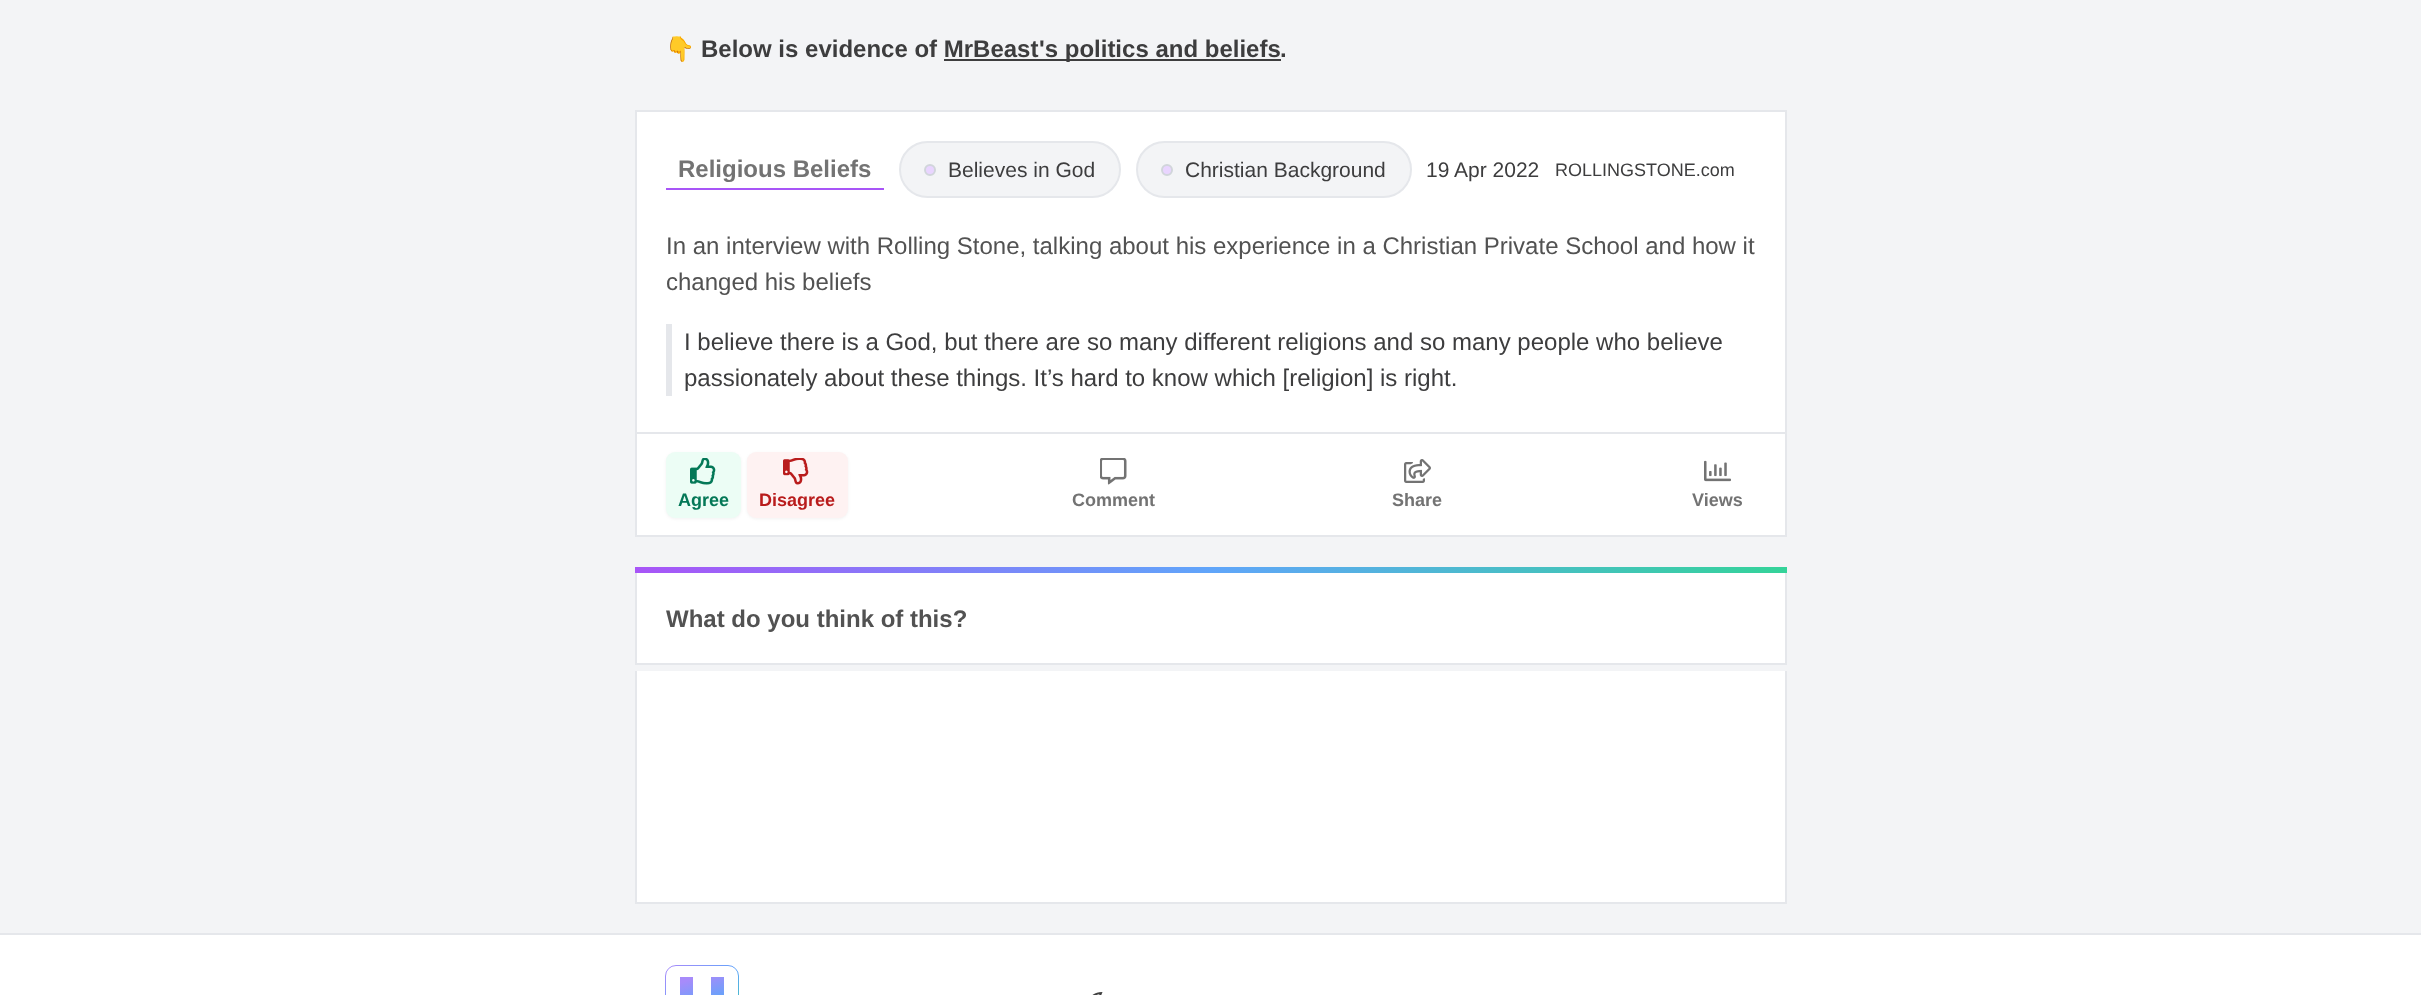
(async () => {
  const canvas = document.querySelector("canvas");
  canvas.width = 2421;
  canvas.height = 995;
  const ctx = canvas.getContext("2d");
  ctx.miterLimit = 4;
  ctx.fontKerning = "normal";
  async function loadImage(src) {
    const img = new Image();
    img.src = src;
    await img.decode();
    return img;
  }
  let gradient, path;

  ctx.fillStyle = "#f3f4f6";
  ctx.fillRect(0, 0, 2421, 995);
  ctx.fillStyle = "#3d3d3e";
  ctx.fillRect(944, 59, 337, 2);
  ctx.fillStyle = "#ffffff";
  ctx.beginPath();
  ctx.rect(636, 111, 1150, 425);
  ctx.fill();
  ctx.strokeStyle = "#e5e7eb";
  ctx.lineWidth = 2;
  ctx.stroke();
  ctx.fillStyle = "#a855f7";
  ctx.fillRect(666, 188, 218, 2);
  ctx.fillStyle = "#f3f4f6";
  ctx.beginPath();
  ctx.roundRect(900, 142, 220, 55, 27.5);
  ctx.fill();
  ctx.stroke();
  ctx.fillStyle = "#e9d5ff";
  ctx.beginPath();
  ctx.arc(930, 170, 5, 0, Math.PI * 2);
  ctx.fill();
  ctx.strokeStyle = "#d1d5db";
  ctx.stroke();
  ctx.fillStyle = "#f3f4f6";
  ctx.beginPath();
  ctx.roundRect(1137, 142, 274, 55, 27.5);
  ctx.fill();
  ctx.strokeStyle = "#e5e7eb";
  ctx.stroke();
  ctx.fillStyle = "#e9d5ff";
  ctx.beginPath();
  ctx.arc(1167, 170, 5, 0, Math.PI * 2);
  ctx.fill();
  ctx.strokeStyle = "#d1d5db";
  ctx.stroke();
  ctx.fillStyle = "#e5e7eb";
  ctx.fillRect(666, 324, 6, 72);
  ctx.fillRect(636, 432, 1149, 2);
  ctx.fillStyle = "rgba(0, 0, 0, 0.05)";
  ctx.filter = "blur(1.5px)";
  ctx.beginPath();
  ctx.roundRect(666, 453, 75, 66, 9);
  ctx.fill();
  ctx.filter = "none";
  ctx.fillStyle = "#ecfdf5";
  ctx.beginPath();
  ctx.roundRect(666, 452, 75, 66, 9);
  ctx.fill();
  ctx.drawImage(await loadImage("img/1.png"), 690, 458, 26, 27);
  ctx.fillStyle = "rgba(0, 0, 0, 0.05)";
  ctx.filter = "blur(1.5px)";
  ctx.beginPath();
  ctx.roundRect(747, 453, 101, 66, 9);
  ctx.fill();
  ctx.filter = "none";
  ctx.fillStyle = "#fef2f2";
  ctx.beginPath();
  ctx.roundRect(747, 452, 101, 66, 9);
  ctx.fill();
  ctx.drawImage(await loadImage("img/2.png"), 783, 458, 26, 27);
  ctx.drawImage(await loadImage("img/3.png"), 1100, 458, 27, 27);
  ctx.drawImage(await loadImage("img/4.png"), 1404, 459, 27, 24);
  ctx.drawImage(await loadImage("img/5.png"), 1704, 460, 27, 22);
  gradient = ctx.createLinearGradient(635, 570, 1787, 570);
  gradient.addColorStop(0, "#a855f7");
  gradient.addColorStop(0.5, "#60a5fa");
  gradient.addColorStop(1, "#34d399");
  ctx.fillStyle = gradient;
  ctx.fillRect(635, 567, 1152, 6);
  for (const [x, y, w, h, color] of [
    [637, 573, 1148, 90, "#ffffff"],
    [1785, 573, 2, 92, "#e5e7eb"],
    [635, 663, 1152, 2, "#e5e7eb"],
    [635, 573, 2, 92, "#e5e7eb"],
    [637, 671, 1148, 231, "#ffffff"],
    [1785, 671, 2, 232, "#e5e7eb"],
    [635, 902, 1152, 2, "#e5e7eb"],
    [635, 671, 2, 232, "#e5e7eb"],
    [0, 935, 2421, 60, "#ffffff"],
    [0, 933, 2421, 2, "#e5e7eb"],
  ]) {
    ctx.fillStyle = color;
    ctx.fillRect(x, y, w, h);
  }
  ctx.beginPath();
  ctx.roundRect(665.5, 965.5, 73, 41, 10.5);
  gradient = ctx.createLinearGradient(736, 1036, 671, 963);
  gradient.addColorStop(0, "#34d399");
  gradient.addColorStop(0.5, "#60a5fa");
  gradient.addColorStop(1, "#a78bfa");
  ctx.strokeStyle = gradient;
  ctx.lineWidth = 1;
  ctx.stroke();
  gradient = ctx.createLinearGradient(679, 983, 695, 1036);
  gradient.addColorStop(0, "#a78bfa");
  gradient.addColorStop(0.5, "#60a5fa");
  gradient.addColorStop(1, "#34d399");
  ctx.fillStyle = gradient;
  path = new Path2D("M680 977H693V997H711V977H724V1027H711V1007H693V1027H680Z");
  ctx.fill(path);
  ctx.drawImage(await loadImage("img/6.png"), 1092, 992, 11, 3);
  ctx.font = "bold 24px Noto Color Emoji";
  ctx.fillStyle = "#3d3d3e";
  ctx.fillText("👇", 665, 57);
  ctx.font = "bold 24px Liberation Sans";
  for (const [text, x, y] of [
    ["Below is evidence of MrBeast", 701, 57],
    ["'s politics and beliefs", 1039, 57],
    [".", 1280, 57],
  ]) {
    ctx.fillText(text, x, y);
  }
  ctx.fillStyle = "#737373";
  ctx.fillText("Religious Beliefs", 678, 177);
  ctx.font = "21px Liberation Sans";
  ctx.fillStyle = "#3d3d3e";
  for (const [text, x, y] of [
    ["Believes in God", 948, 177],
    ["Christian Background", 1185, 177],
    ["19 Apr 2022", 1426, 177],
  ]) {
    ctx.fillText(text, x, y);
  }
  ctx.font = "18px Liberation Sans";
  ctx.fillText("ROLLINGSTONE.com", 1555, 176);
  ctx.font = "24px Liberation Sans";
  ctx.fillStyle = "#525252";
  ctx.fillText("In an interview with Rolling Stone, talking about his experience in a Christian Private School and how it", 666, 254);
  ctx.fillText("changed his beliefs", 666, 290);
  ctx.fillStyle = "#3d3d3e";
  ctx.fillText("I believe there is a God, but there are so many different religions and so many people who believe", 684, 350);
  ctx.fillText("passionately about these things. It’s hard to know which [religion] is right.", 684, 386);
  ctx.font = "bold 18px Liberation Sans";
  ctx.fillStyle = "#047857";
  ctx.fillText("Agree", 678, 506);
  ctx.fillStyle = "#b91c1c";
  ctx.fillText("Disagree", 759, 506);
  ctx.fillStyle = "#737373";
  for (const [text, x, y] of [
    ["Comment", 1072, 506],
    ["Share", 1392, 506],
    ["Views", 1692, 506],
  ]) {
    ctx.fillText(text, x, y);
  }
  ctx.font = "bold 24px Liberation Sans";
  ctx.fillStyle = "#525252";
  ctx.fillText("What do you think of this?", 666, 627);
})();
